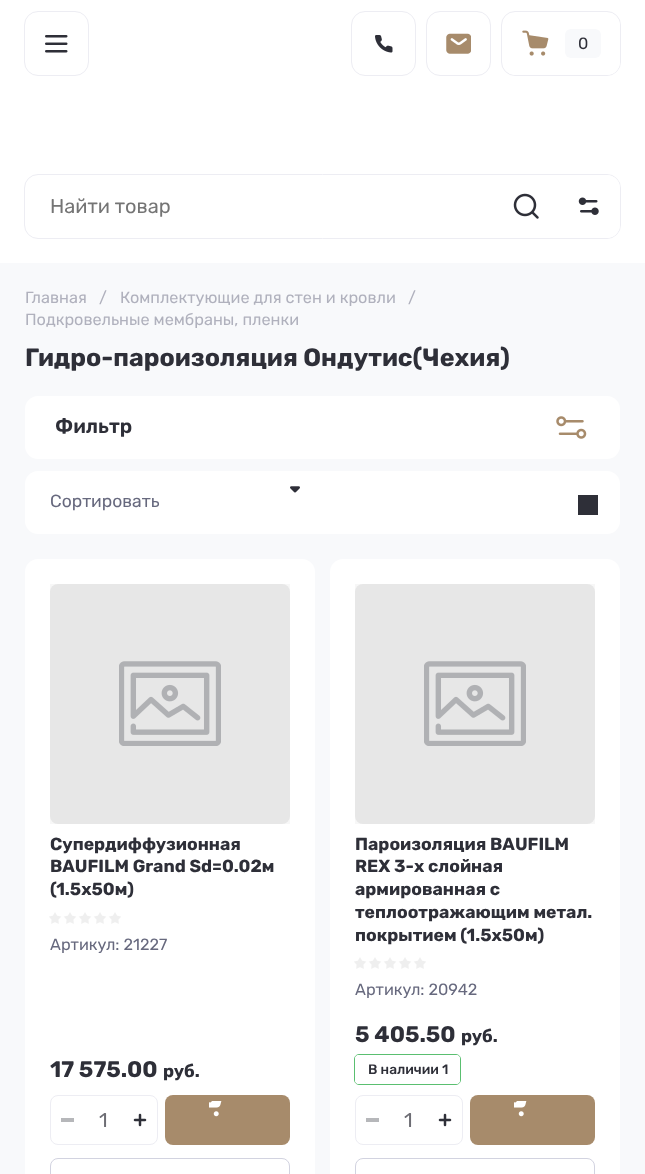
(async () => {
  const canvas = document.querySelector("canvas");
  canvas.width = 645;
  canvas.height = 1174;
  const ctx = canvas.getContext("2d");
  ctx.miterLimit = 4;
  ctx.fontKerning = "normal";
  async function loadImage(src) {
    const img = new Image();
    img.src = src;
    await img.decode();
    return img;
  }

  ctx.fillStyle = "#f8f9fb";
  ctx.fillRect(0, 0, 645, 1174);
  ctx.fillStyle = "#ffffff";
  ctx.fillRect(0, 0, 645, 263);
  ctx.beginPath();
  ctx.roundRect(24.5, 11.5, 64, 64, 13.5);
  ctx.strokeStyle = "#ededf3";
  ctx.stroke();
  ctx.drawImage(await loadImage("img/1.png"), 45, 35, 23, 18);
  ctx.beginPath();
  ctx.roundRect(351.5, 11.5, 64, 64, 13.5);
  ctx.stroke();
  ctx.drawImage(await loadImage("img/2.png"), 375, 35, 18, 18);
  ctx.beginPath();
  ctx.roundRect(426.5, 11.5, 64, 64, 13.5);
  ctx.stroke();
  ctx.drawImage(await loadImage("img/3.png"), 446, 33, 25, 21);
  ctx.beginPath();
  ctx.roundRect(501.5, 11.5, 119, 64, 13.5);
  ctx.stroke();
  ctx.beginPath();
  ctx.roundRect(503, 13, 117, 62, 13);
  ctx.fill();
  ctx.drawImage(await loadImage("img/4.png"), 522, 30, 27, 26);
  ctx.fillStyle = "#f8f9fb";
  ctx.beginPath();
  ctx.roundRect(565, 29, 36, 29, 6);
  ctx.fill();
  ctx.beginPath();
  ctx.roundRect(24.5, 174.5, 596, 64, 13.5);
  ctx.stroke();
  ctx.drawImage(await loadImage("img/5.png"), 513, 193, 26, 26);
  ctx.fillStyle = "#ffffff";
  ctx.beginPath();
  ctx.roundRect(558, 175, 62, 63, [0, 13, 13, 0]);
  ctx.fill();
  ctx.drawImage(await loadImage("img/6.png"), 578, 197, 21, 18);
  ctx.beginPath();
  ctx.roundRect(25, 396, 595, 63, 13);
  ctx.fill();
  ctx.drawImage(await loadImage("img/7.png"), 556, 416, 31, 23);
  ctx.beginPath();
  ctx.roundRect(25, 471, 595, 63, 13);
  ctx.fill();
  ctx.drawImage(await loadImage("img/8.png"), 290, 486, 10, 7);
  ctx.fillStyle = "#2e2f38";
  ctx.fillRect(578, 495, 20, 20);
  ctx.fillStyle = "#ffffff";
  ctx.beginPath();
  ctx.roundRect(25, 559, 290, 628, 13);
  ctx.fill();
  ctx.fillStyle = "#efefef";
  ctx.beginPath();
  ctx.roundRect(50, 584, 240, 240, 8);
  ctx.fill();
  ctx.drawImage(await loadImage("img/9.png"), 119, 661, 102, 85);
  ctx.fillStyle = "rgba(0, 0, 0, 0.03)";
  ctx.fillRect(50, 584, 240, 240);
  ctx.drawImage(await loadImage("img/10.png"), 49, 912, 72, 12);
  ctx.beginPath();
  ctx.roundRect(50.5, 1095.5, 107, 49, 7.5);
  ctx.stroke();
  ctx.fillStyle = "#b6b7ba";
  ctx.fillRect(61, 1118, 13, 4);
  ctx.drawImage(await loadImage("img/11.png"), 133, 1113, 14, 14);
  ctx.fillStyle = "#a78b6b";
  ctx.beginPath();
  ctx.roundRect(165, 1095, 125, 50, 8);
  ctx.fill();
  ctx.drawImage(await loadImage("img/12.png"), 209, 1101, 13, 16);
  ctx.beginPath();
  ctx.roundRect(50.5, 1158.5, 239, 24, 7.5);
  ctx.strokeStyle = "#d2d3e0";
  ctx.stroke();
  ctx.fillStyle = "#ffffff";
  ctx.beginPath();
  ctx.roundRect(330, 559, 290, 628, 13);
  ctx.fill();
  ctx.fillStyle = "#efefef";
  ctx.beginPath();
  ctx.roundRect(355, 584, 240, 240, 8);
  ctx.fill();
  ctx.drawImage(await loadImage("img/9.png"), 424, 661, 102, 85);
  ctx.fillStyle = "rgba(0, 0, 0, 0.03)";
  ctx.fillRect(355, 584, 240, 240);
  ctx.drawImage(await loadImage("img/10.png"), 354, 957, 72, 12);
  ctx.beginPath();
  ctx.roundRect(354.5, 1054.5, 106, 30, 4.5);
  ctx.strokeStyle = "#5abf70";
  ctx.stroke();
  ctx.fillStyle = "#ffffff";
  ctx.beginPath();
  ctx.roundRect(355, 1055, 105, 29, 4);
  ctx.fill();
  ctx.beginPath();
  ctx.roundRect(355.5, 1095.5, 107, 49, 7.5);
  ctx.strokeStyle = "#ededf3";
  ctx.stroke();
  ctx.fillStyle = "#b6b7ba";
  ctx.fillRect(366, 1118, 13, 4);
  ctx.drawImage(await loadImage("img/11.png"), 438, 1113, 14, 14);
  ctx.fillStyle = "#a78b6b";
  ctx.beginPath();
  ctx.roundRect(470, 1095, 125, 50, 8);
  ctx.fill();
  ctx.drawImage(await loadImage("img/12.png"), 514, 1101, 13, 16);
  ctx.beginPath();
  ctx.roundRect(355.5, 1158.5, 239, 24, 7.5);
  ctx.strokeStyle = "#d2d3e0";
  ctx.stroke();
  ctx.font = "16.25px Rubik";
  ctx.fillStyle = "#2e2f38";
  ctx.fillText("0", 578, 49);
  ctx.font = "20px Rubik";
  ctx.fillStyle = "#757575";
  ctx.fillText("Найти товар", 50, 213);
  ctx.font = "16.25px Rubik";
  ctx.fillStyle = "#b0b1bd";
  for (const [text, x, y] of [
    ["Главная", 25, 303],
    ["/", 99, 303],
    ["Комплектующие для стен и кровли", 120, 303],
    ["/", 408, 303],
    ["Подкровельные мембраны, пленки", 25, 325],
  ]) {
    ctx.fillText(text, x, y);
  }
  ctx.font = "bold 25px Rubik";
  ctx.fillStyle = "#2e2f38";
  ctx.fillText("Гидро-пароизоляция Ондутис(Чехия)", 25, 366);
  ctx.font = "600 20px Rubik";
  ctx.fillText("Фильтр", 55, 433);
  ctx.font = "17.5px Rubik";
  ctx.fillStyle = "#67697e";
  ctx.fillText("Сортировать", 50, 507);
  ctx.font = "bold 17.5px Rubik";
  ctx.fillStyle = "#2e2f38";
  for (const [text, x, y] of [
    ["Супердиффузионная", 50, 850],
    ["BAUFILM Grand Sd=0.02м", 50, 872],
    ["(1.5х50м)", 50, 895],
  ]) {
    ctx.fillText(text, x, y);
  }
  ctx.font = "16.25px Rubik";
  ctx.fillStyle = "#67697e";
  ctx.fillText("Артикул: 21227", 50, 950);
  ctx.font = "bold 22.5px Rubik";
  ctx.fillStyle = "#2e2f38";
  ctx.fillText("17 575.00", 50, 1077);
  ctx.font = "bold 17.5px Rubik";
  ctx.fillText("руб.", 163, 1077);
  ctx.font = "20px Rubik";
  ctx.fillStyle = "#6d6d74";
  ctx.fillText("1", 99, 1127);
  ctx.font = "bold 17.5px Rubik";
  ctx.fillStyle = "#2e2f38";
  for (const [text, x, y] of [
    ["Пароизоляция BAUFILM", 355, 850],
    ["REX 3-х слойная", 355, 872],
    ["армированная с", 355, 895],
    ["теплоотражающим метал.", 355, 918],
    ["покрытием (1.5х50м)", 355, 941],
  ]) {
    ctx.fillText(text, x, y);
  }
  ctx.font = "16.25px Rubik";
  ctx.fillStyle = "#67697e";
  ctx.fillText("Артикул: 20942", 355, 995);
  ctx.font = "bold 22.5px Rubik";
  ctx.fillStyle = "#2e2f38";
  ctx.fillText("5 405.50", 355, 1042);
  ctx.font = "bold 17.5px Rubik";
  ctx.fillText("руб.", 461, 1042);
  ctx.font = "500 13.75px Rubik";
  ctx.fillText("В наличии 1", 368, 1074);
  ctx.font = "20px Rubik";
  ctx.fillStyle = "#6d6d74";
  ctx.fillText("1", 404, 1127);
})();
